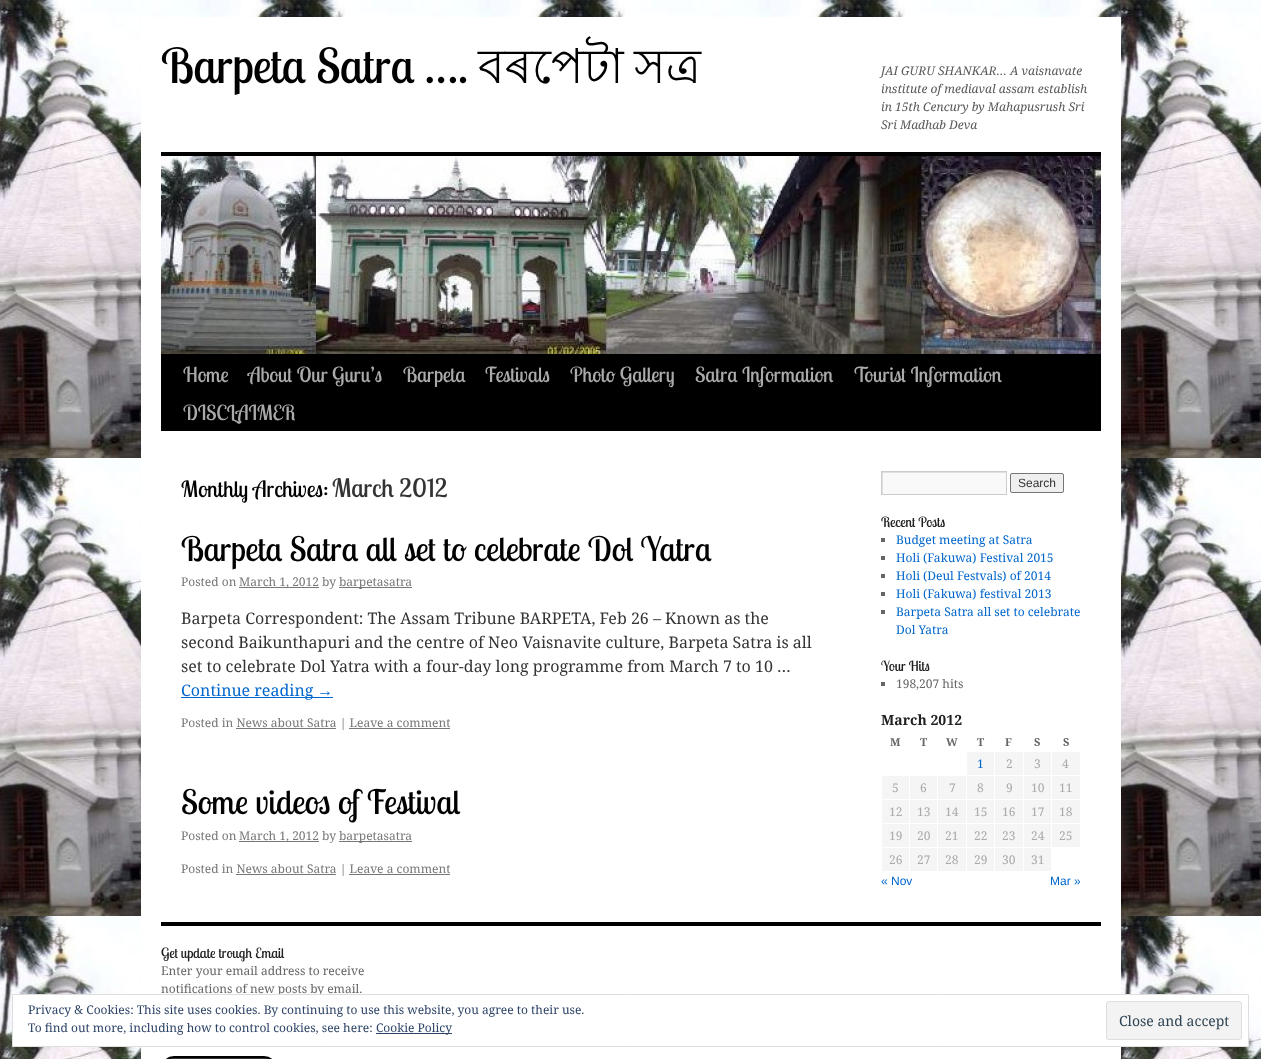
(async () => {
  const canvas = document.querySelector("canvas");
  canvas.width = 1261;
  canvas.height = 1059;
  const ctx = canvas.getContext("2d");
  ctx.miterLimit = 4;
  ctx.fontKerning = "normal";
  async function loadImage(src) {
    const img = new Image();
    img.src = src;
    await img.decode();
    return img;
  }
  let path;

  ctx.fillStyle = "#ffffff";
  ctx.fillRect(0, 0, 1261, 1059);
  ctx.drawImage(await loadImage("img/1.png"), 0, 0, 1261, 1059);
  for (const [x, y, w, h, color] of [
    [141, 17, 980, 1042, "#ffffff"],
    [161, 152, 940, 4, "#000000"],
    [161, 354, 940, 77, "#000000"],
  ]) {
    ctx.fillStyle = color;
    ctx.fillRect(x, y, w, h);
  }
  ctx.drawImage(await loadImage("img/2.png"), 161, 156, 940, 198);
  for (const [x, y, w, h, color] of [
    [239, 587, 80, 1, "#777777"],
    [339, 587, 73, 1, "#777777"],
    [181, 697, 152, 1, "#0066cc"],
    [236, 728, 100, 1, "#777777"],
    [349, 728, 101, 1, "#777777"],
    [239, 841, 80, 1, "#777777"],
    [339, 841, 73, 1, "#777777"],
    [236, 874, 100, 1, "#777777"],
    [349, 874, 101, 1, "#777777"],
    [883, 473, 123, 21, "#f9f9f9"],
  ]) {
    ctx.fillStyle = color;
    ctx.fillRect(x, y, w, h);
  }
  ctx.save();
  ctx.beginPath();
  ctx.rect(882, 472, 124, 22);
  ctx.clip();
  ctx.fillStyle = "#e0e0e0";
  path = new Path2D("M783 373H1105V593H783ZM883 473H1007V495H883Z");
  ctx.fill(path, "evenodd");
  ctx.restore();
  ctx.strokeStyle = "#cccccc";
  ctx.strokeRect(881.5, 471.5, 125, 23);
  ctx.fillStyle = "#efefef";
  ctx.beginPath();
  ctx.roundRect(1010.5, 473.5, 53, 19, 1.5);
  ctx.fill();
  ctx.strokeStyle = "#767676";
  ctx.stroke();
  for (const [x, y, w, h, color] of [
    [881, 538, 4, 4, "#666666"],
    [881, 556, 4, 4, "#666666"],
    [881, 574, 4, 4, "#666666"],
    [881, 592, 4, 4, "#666666"],
    [881, 610, 4, 4, "#666666"],
    [881, 682, 4, 4, "#666666"],
    [967, 752, 27, 23, "#f5f5f5"],
    [995, 752, 28, 23, "#f5f5f5"],
    [1024, 752, 27, 23, "#f5f5f5"],
    [1052, 752, 28, 23, "#f5f5f5"],
    [882, 776, 27, 23, "#f5f5f5"],
    [910, 776, 27, 23, "#f5f5f5"],
    [938, 776, 28, 23, "#f5f5f5"],
    [967, 776, 27, 23, "#f5f5f5"],
    [995, 776, 28, 23, "#f5f5f5"],
    [1024, 776, 27, 23, "#f5f5f5"],
    [1052, 776, 28, 23, "#f5f5f5"],
    [882, 800, 27, 23, "#f5f5f5"],
    [910, 800, 27, 23, "#f5f5f5"],
    [938, 800, 28, 23, "#f5f5f5"],
    [967, 800, 27, 23, "#f5f5f5"],
    [995, 800, 28, 23, "#f5f5f5"],
    [1024, 800, 27, 23, "#f5f5f5"],
    [1052, 800, 28, 23, "#f5f5f5"],
    [882, 824, 27, 23, "#f5f5f5"],
    [910, 824, 27, 23, "#f5f5f5"],
    [938, 824, 28, 23, "#f5f5f5"],
    [967, 824, 27, 23, "#f5f5f5"],
    [995, 824, 28, 23, "#f5f5f5"],
    [1024, 824, 27, 23, "#f5f5f5"],
    [1052, 824, 28, 23, "#f5f5f5"],
    [882, 848, 27, 23, "#f5f5f5"],
    [910, 848, 27, 23, "#f5f5f5"],
    [938, 848, 28, 23, "#f5f5f5"],
    [967, 848, 27, 23, "#f5f5f5"],
    [995, 848, 28, 23, "#f5f5f5"],
    [1024, 848, 27, 23, "#f5f5f5"],
    [161, 922, 940, 4, "#000000"],
  ]) {
    ctx.fillStyle = color;
    ctx.fillRect(x, y, w, h);
  }
  ctx.fillStyle = "#32373c";
  ctx.beginPath();
  ctx.roundRect(162, 1057, 114, 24, 19.5);
  ctx.fill();
  ctx.strokeStyle = "#000000";
  ctx.lineWidth = 2;
  ctx.stroke();
  ctx.font = "48px Lobster Two";
  ctx.fillStyle = "#000000";
  ctx.fillText("Barpeta Satra ….", 161, 83);
  ctx.font = "48px Lohit Bengali";
  ctx.fillText("বৰপেটা", 478, 83);
  ctx.fillText("সত্ৰ", 634, 83);
  ctx.font = "italic 12px Noto Serif";
  ctx.fillStyle = "#595959";
  for (const [text, x, y] of [
    ["JAI GURU SHANKAR… A vaisnavate", 881, 75],
    ["institute of mediaval assam establish", 881, 93],
    ["in 15th Cencury by Mahapusrush Sri", 881, 111],
    ["Sri Madhab Deva", 881, 129],
  ]) {
    ctx.fillText(text, x, y);
  }
  ctx.font = "20.75px Lobster Two";
  ctx.fillStyle = "#aaaaaa";
  for (const [text, x, y] of [
    ["Home", 183, 382],
    ["About Our Guru’s", 248, 382],
    ["Barpeta", 403, 382],
    ["Festivals", 485, 382],
    ["Photo Gallery", 570, 382],
    ["Satra Information", 695, 382],
    ["Tourist Information", 854, 382],
    ["DISCLAIMER", 183, 420],
  ]) {
    ctx.fillText(text, x, y);
  }
  ctx.font = "22.5px Lobster Two";
  ctx.fillStyle = "#000000";
  ctx.fillText("Monthly Archives:", 181, 497);
  ctx.font = "25.5px Lobster Two";
  ctx.fillStyle = "#333333";
  ctx.fillText("March 2012", 332, 497);
  ctx.font = "33.6px Lobster Two";
  ctx.fillStyle = "#000000";
  ctx.fillText("Barpeta Satra all set to celebrate Dol Yatra", 181, 561);
  ctx.font = "12px Noto Serif";
  ctx.fillStyle = "#777777";
  for (const [text, x, y] of [
    ["Posted on", 181, 586],
    ["March 1, 2012 by", 239, 586],
    ["barpetasatra", 339, 586],
  ]) {
    ctx.fillText(text, x, y);
  }
  ctx.font = "16px Noto Serif";
  ctx.fillStyle = "#333333";
  for (const [text, x, y] of [
    ["Barpeta Correspondent: The Assam Tribune BARPETA, Feb 26 – Known as the", 181, 624],
    ["second Baikunthapuri and the centre of Neo Vaisnavite culture, Barpeta Satra is all", 181, 648],
    ["set to celebrate Dol Yatra with a four-day long programme from March 7 to 10 …", 181, 672],
  ]) {
    ctx.fillText(text, x, y);
  }
  ctx.fillStyle = "#0066cc";
  ctx.fillText("Continue reading", 181, 696);
  ctx.font = "16px Liberation Serif";
  ctx.fillText("→", 317, 696);
  ctx.font = "12px Noto Serif";
  ctx.fillStyle = "#777777";
  ctx.fillText("Posted in News about Satra | Leave a comment", 181, 727);
  ctx.font = "33.6px Lobster Two";
  ctx.fillStyle = "#000000";
  ctx.fillText("Some videos of Festival", 181, 814);
  ctx.font = "12px Noto Serif";
  ctx.fillStyle = "#777777";
  for (const [text, x, y] of [
    ["Posted on", 181, 840],
    ["March 1, 2012 by", 239, 840],
    ["barpetasatra", 339, 840],
    ["Posted in News about Satra | Leave a comment", 181, 873],
  ]) {
    ctx.fillText(text, x, y);
  }
  ctx.font = "12px Liberation Sans";
  ctx.fillStyle = "#333333";
  ctx.fillText("Search", 1018, 487);
  ctx.font = "14px Lobster Two";
  ctx.fillStyle = "#222222";
  ctx.fillText("Recent Posts", 881, 527);
  ctx.font = "12px Noto Serif";
  ctx.fillStyle = "#0066cc";
  for (const [text, x, y] of [
    ["Budget meeting at Satra", 896, 544],
    ["Holi (Fakuwa) Festival 2015", 896, 562],
    ["Holi (Deul Festvals) of 2014", 896, 580],
    ["Holi (Fakuwa) festival 2013", 896, 598],
    ["Barpeta Satra all set to celebrate", 896, 616],
    ["Dol Yatra", 896, 634],
  ]) {
    ctx.fillText(text, x, y);
  }
  ctx.font = "14px Lobster Two";
  ctx.fillStyle = "#222222";
  ctx.fillText("Your Hits", 881, 671);
  ctx.font = "12px Noto Serif";
  ctx.fillStyle = "#666666";
  ctx.fillText("198,207 hits", 896, 688);
  ctx.font = "bold 14px Noto Serif";
  ctx.fillStyle = "#222222";
  ctx.fillText("March 2012", 881, 725);
  ctx.font = "bold 11px Noto Serif";
  ctx.fillStyle = "#666666";
  for (const [text, x, y] of [
    ["M", 890, 746],
    ["T", 920, 746],
    ["W", 946, 746],
    ["T", 977, 746],
    ["F", 1005, 746],
    ["S", 1034, 746],
    ["S", 1063, 746],
  ]) {
    ctx.fillText(text, x, y);
  }
  ctx.font = "12px Noto Serif";
  ctx.fillStyle = "#0066cc";
  ctx.fillText("1", 977, 768);
  ctx.fillStyle = "#aaaaaa";
  for (const [text, x, y] of [
    ["2", 1006, 768],
    ["3", 1034, 768],
    ["4", 1062, 768],
    ["5", 892, 792],
    ["6", 920, 792],
    ["7", 949, 792],
    ["8", 977, 792],
    ["9", 1006, 792],
    ["10", 1031, 792],
    ["11", 1059, 792],
    ["12", 889, 816],
    ["13", 917, 816],
    ["14", 945, 816],
    ["15", 974, 816],
    ["16", 1002, 816],
    ["17", 1031, 816],
    ["18", 1059, 816],
    ["19", 889, 840],
    ["20", 917, 840],
    ["21", 945, 840],
    ["22", 974, 840],
    ["23", 1002, 840],
    ["24", 1031, 840],
    ["25", 1059, 840],
    ["26", 889, 864],
    ["27", 917, 864],
    ["28", 945, 864],
    ["29", 974, 864],
    ["30", 1002, 864],
    ["31", 1031, 864],
  ]) {
    ctx.fillText(text, x, y);
  }
  ctx.font = "12px Liberation Sans";
  ctx.fillStyle = "#0066cc";
  ctx.fillText("« Nov", 881, 885);
  ctx.fillText("Mar »", 1050, 885);
  ctx.font = "14px Lobster Two";
  ctx.fillStyle = "#222222";
  ctx.fillText("Get update trough Email", 161, 958);
  ctx.font = "12px Noto Serif";
  ctx.fillStyle = "#666666";
  ctx.fillText("Enter your email address to receive", 161, 975);
  ctx.fillText("notifications of new posts by email.", 161, 993);
  ctx.fillStyle = "#ffffff";
  ctx.beginPath();
  ctx.rect(12.5, 994.5, 1236, 52);
  ctx.fill();
  ctx.strokeStyle = "#dedede";
  ctx.lineWidth = 1;
  ctx.stroke();
  ctx.fillStyle = "#2e4467";
  ctx.fillText("Privacy & Cookies: This site uses cookies. By continuing to use this website, you agree to their use.", 28, 1014);
  ctx.fillText("To find out more, including how to control cookies, see here:", 28, 1032);
  ctx.fillRect(376, 1033, 76, 1);
  ctx.fillText("Cookie Policy", 376, 1032);
  ctx.fillStyle = "#f3f3f3";
  ctx.beginPath();
  ctx.roundRect(1106.5, 1001.5, 135, 38, 2.5);
  ctx.fill();
  ctx.stroke();
  ctx.font = "14px Noto Serif";
  ctx.fillStyle = "#2e4453";
  ctx.fillText("Close and accept", 1119, 1026);
})();
